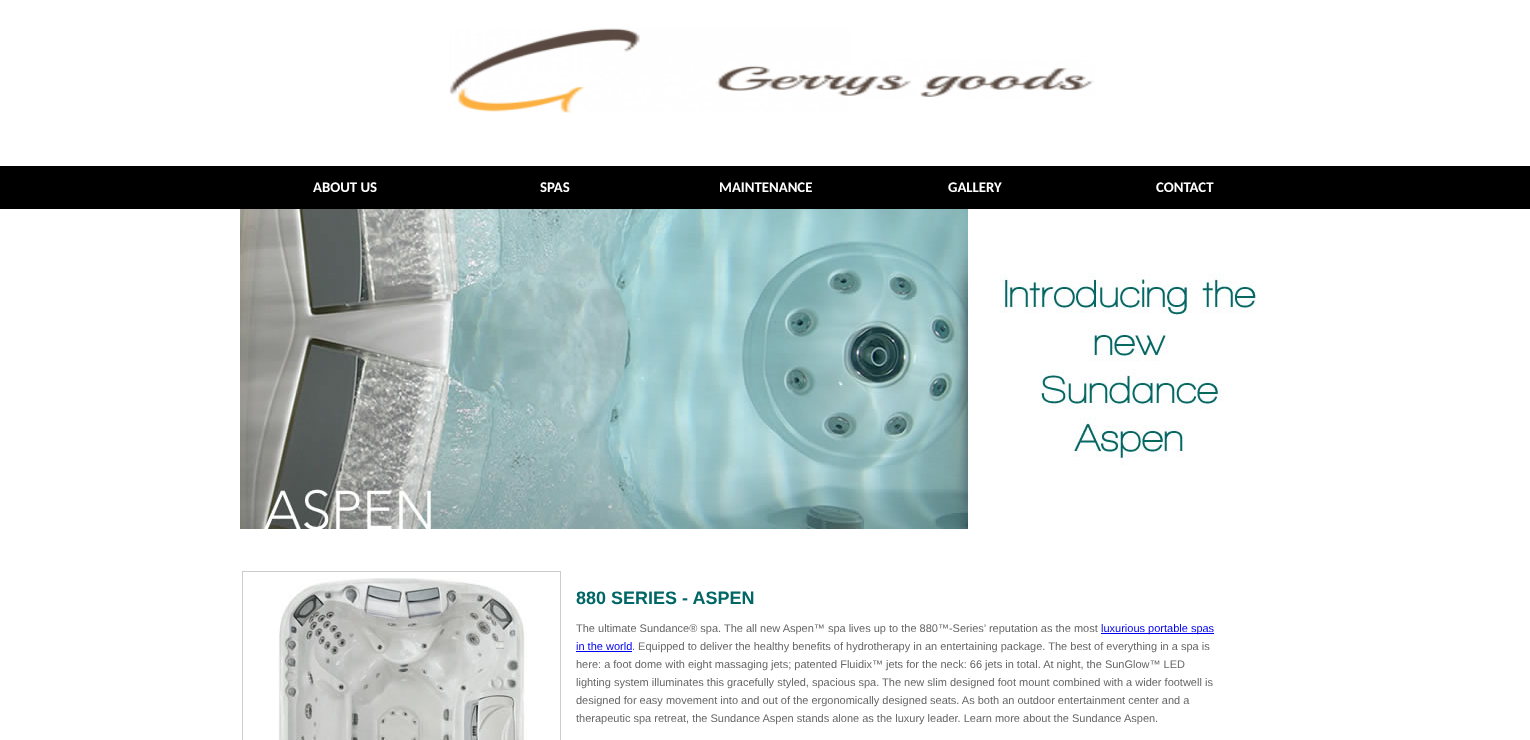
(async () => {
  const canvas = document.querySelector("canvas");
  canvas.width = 1530;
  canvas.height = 740;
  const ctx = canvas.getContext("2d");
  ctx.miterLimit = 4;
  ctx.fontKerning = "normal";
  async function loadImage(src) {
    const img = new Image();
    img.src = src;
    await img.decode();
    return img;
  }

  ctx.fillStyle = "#ffffff";
  ctx.fillRect(0, 0, 1530, 740);
  ctx.drawImage(await loadImage("img/1.png"), 449, 28, 645, 85);
  ctx.fillStyle = "#000000";
  ctx.fillRect(0, 166, 1530, 43);
  ctx.drawImage(await loadImage("img/2.png"), 240, 209, 1016, 320);
  ctx.strokeStyle = "#cccccc";
  ctx.strokeRect(242.5, 571.5, 318, 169);
  ctx.drawImage(await loadImage("img/3.png"), 278, 578, 249, 162);
  ctx.fillStyle = "#0000ee";
  ctx.fillRect(1101, 633, 113, 1);
  ctx.fillRect(576, 651, 56, 1);
  ctx.font = "bold 14.75px Carlito";
  ctx.fillStyle = "#ffffff";
  for (const [text, x, y] of [
    ["ABOUT US", 313, 192],
    ["SPAS", 540, 192],
    ["MAINTENANCE", 719, 192],
    ["GALLERY", 948, 192],
    ["CONTACT", 1156, 192],
  ]) {
    ctx.fillText(text, x, y);
  }
  ctx.font = "bold 18px Liberation Sans";
  ctx.fillStyle = "#006666";
  ctx.fillText("880 SERIES - ASPEN", 576, 604);
  ctx.font = "11px Liberation Sans";
  ctx.fillStyle = "#666666";
  ctx.fillText("The ultimate Sundance® spa. The all new Aspen™ spa lives up to the 880™-Series’ reputation as the most", 576, 632);
  ctx.fillStyle = "#0000ee";
  ctx.fillText("luxurious portable spas", 1101, 632);
  ctx.fillText("in the world", 576, 650);
  ctx.fillStyle = "#666666";
  for (const [text, x, y] of [
    [". Equipped to deliver the healthy benefits of hydrotherapy in an entertaining package. The best of everything in a spa is", 632, 650],
    ["here: a foot dome with eight massaging jets; patented Fluidix™ jets for the neck: 66 jets in total. At night, the SunGlow™ LED", 576, 668],
    ["lighting system illuminates this gracefully styled, spacious spa. The new slim designed foot mount combined with a wider footwell is", 576, 686],
    ["designed for easy movement into and out of the ergonomically designed seats. As both an outdoor entertainment center and a", 576, 704],
    ["therapeutic spa retreat, the Sundance Aspen stands alone as the luxury leader. Learn more about the Sundance Aspen.", 576, 722],
  ]) {
    ctx.fillText(text, x, y);
  }
})();
